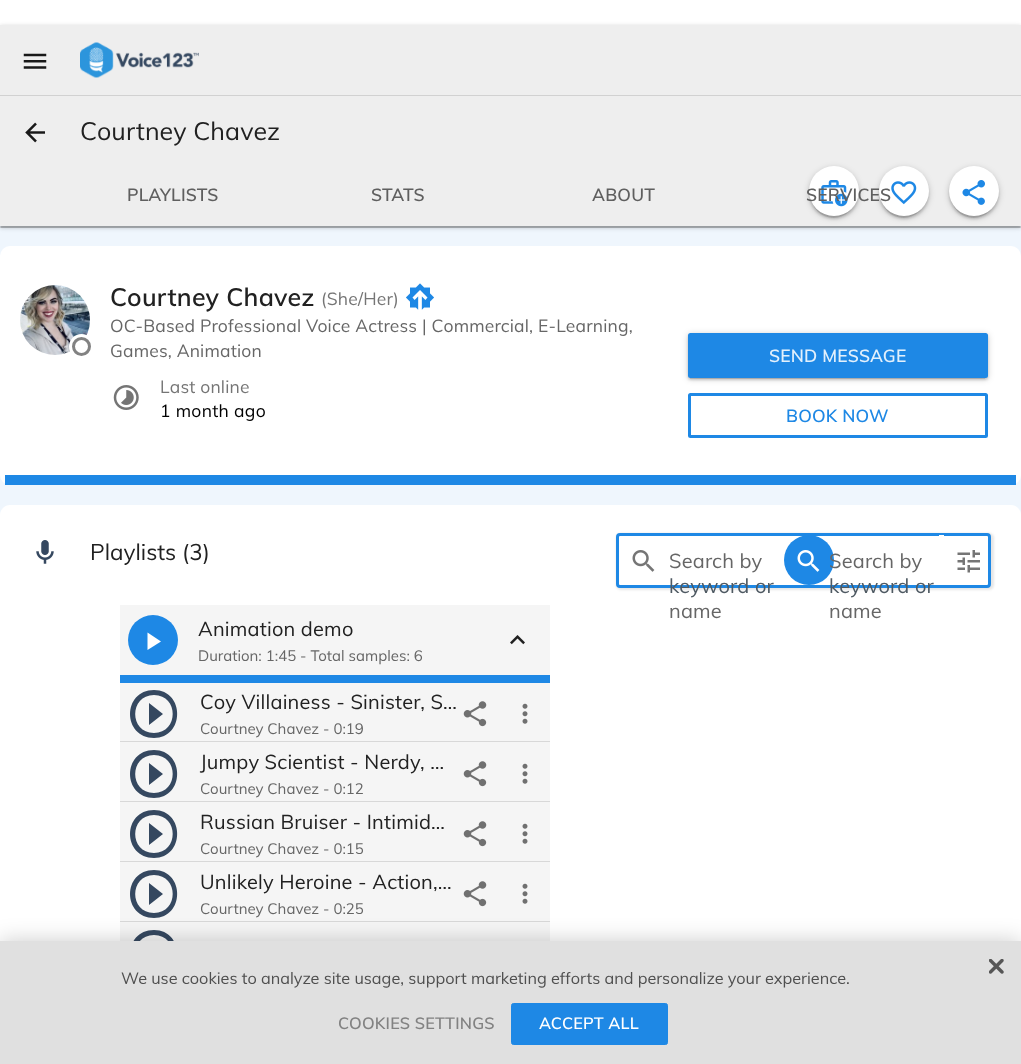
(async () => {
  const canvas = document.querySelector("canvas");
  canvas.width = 1021;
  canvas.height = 1064;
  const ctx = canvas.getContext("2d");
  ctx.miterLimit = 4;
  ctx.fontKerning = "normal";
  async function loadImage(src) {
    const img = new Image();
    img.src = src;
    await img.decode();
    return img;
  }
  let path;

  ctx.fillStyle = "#ffffff";
  ctx.fillRect(0, 0, 1021, 1064);
  ctx.fillStyle = "#eff6fd";
  ctx.fillRect(0, 226, 1021, 289);
  ctx.fillStyle = "rgba(0, 0, 0, 0.12)";
  ctx.filter = "blur(0.5px)";
  ctx.beginPath();
  ctx.rect(1, 29, 1019, 199);
  ctx.fill();
  ctx.filter = "none";
  ctx.fillStyle = "rgba(0, 0, 0, 0.14)";
  ctx.filter = "blur(0.5px)";
  ctx.beginPath();
  ctx.rect(0, 26, 1021, 202);
  ctx.fill();
  ctx.filter = "none";
  ctx.fillStyle = "rgba(0, 0, 0, 0.2)";
  ctx.filter = "blur(2px)";
  ctx.beginPath();
  ctx.rect(0, 26, 1021, 202);
  ctx.fill();
  ctx.filter = "none";
  ctx.fillStyle = "#eeeeee";
  ctx.fillRect(0, 25, 1021, 201);
  ctx.drawImage(await loadImage("img/1.png"), 23, 53, 24, 16);
  ctx.drawImage(await loadImage("img/2.png"), 80, 42, 119, 36);
  ctx.fillStyle = "#d1d1d1";
  ctx.fillRect(0, 95, 1021, 1);
  ctx.drawImage(await loadImage("img/3.png"), 25, 122, 20, 21);
  ctx.fillStyle = "rgba(0, 0, 0, 0.12)";
  ctx.filter = "blur(0.5px)";
  ctx.beginPath();
  ctx.roundRect(811, 173, 45, 45, 22.5);
  ctx.fill();
  ctx.filter = "none";
  ctx.fillStyle = "rgba(0, 0, 0, 0.14)";
  ctx.filter = "blur(1px)";
  ctx.beginPath();
  ctx.roundRect(809, 169, 50, 50, 25);
  ctx.fill();
  ctx.filter = "none";
  ctx.fillStyle = "rgba(0, 0, 0, 0.2)";
  ctx.filter = "blur(3px)";
  ctx.beginPath();
  ctx.roundRect(809, 168, 50, 50, 25);
  ctx.fill();
  ctx.filter = "none";
  ctx.fillStyle = "#ffffff";
  ctx.beginPath();
  ctx.arc(834, 191, 25, 0, Math.PI * 2);
  ctx.fill();
  ctx.drawImage(await loadImage("img/4.png"), 821, 180, 27, 27);
  ctx.fillStyle = "rgba(0, 0, 0, 0.12)";
  ctx.filter = "blur(0.5px)";
  ctx.beginPath();
  ctx.roundRect(881, 173, 45, 45, 22.5);
  ctx.fill();
  ctx.filter = "none";
  ctx.fillStyle = "rgba(0, 0, 0, 0.14)";
  ctx.filter = "blur(1px)";
  ctx.beginPath();
  ctx.roundRect(879, 169, 50, 50, 25);
  ctx.fill();
  ctx.filter = "none";
  ctx.fillStyle = "rgba(0, 0, 0, 0.2)";
  ctx.filter = "blur(3px)";
  ctx.beginPath();
  ctx.roundRect(879, 168, 50, 50, 25);
  ctx.fill();
  ctx.filter = "none";
  ctx.fillStyle = "#ffffff";
  ctx.beginPath();
  ctx.arc(904, 191, 25, 0, Math.PI * 2);
  ctx.fill();
  ctx.drawImage(await loadImage("img/5.png"), 891, 181, 26, 24);
  ctx.fillStyle = "rgba(0, 0, 0, 0.12)";
  ctx.filter = "blur(0.5px)";
  ctx.beginPath();
  ctx.roundRect(951, 173, 45, 45, 22.5);
  ctx.fill();
  ctx.filter = "none";
  ctx.fillStyle = "rgba(0, 0, 0, 0.14)";
  ctx.filter = "blur(1px)";
  ctx.beginPath();
  ctx.roundRect(949, 169, 50, 50, 25);
  ctx.fill();
  ctx.filter = "none";
  ctx.fillStyle = "rgba(0, 0, 0, 0.2)";
  ctx.filter = "blur(3px)";
  ctx.beginPath();
  ctx.roundRect(949, 168, 50, 50, 25);
  ctx.fill();
  ctx.filter = "none";
  ctx.fillStyle = "#ffffff";
  ctx.beginPath();
  ctx.arc(974, 191, 25, 0, Math.PI * 2);
  ctx.fill();
  ctx.drawImage(await loadImage("img/6.png"), 962, 180, 23, 25);
  ctx.beginPath();
  ctx.roundRect(0, 246, 1021, 239, 10);
  ctx.fill();
  ctx.fillStyle = "#1e88e5";
  ctx.fillRect(5, 475, 1011, 10);
  ctx.drawImage(await loadImage("img/7.png"), 20, 285, 70, 70);
  ctx.fillStyle = "#828282";
  ctx.beginPath();
  ctx.arc(81.5, 346.5, 11, 0, Math.PI * 2);
  ctx.fill();
  ctx.strokeStyle = "#ffffff";
  ctx.lineWidth = 3;
  ctx.stroke();
  ctx.fillStyle = "#ffffff";
  ctx.beginPath();
  ctx.arc(81.5, 346.5, 6.5, 0, Math.PI * 2);
  ctx.fill();
  ctx.drawImage(await loadImage("img/8.png"), 406, 283, 28, 27);
  ctx.drawImage(await loadImage("img/9.png"), 113, 385, 26, 25);
  ctx.fillStyle = "rgba(0, 0, 0, 0.12)";
  ctx.filter = "blur(0.5px)";
  ctx.beginPath();
  ctx.rect(690, 339, 295, 40);
  ctx.fill();
  ctx.filter = "none";
  ctx.fillStyle = "rgba(0, 0, 0, 0.14)";
  ctx.filter = "blur(1px)";
  ctx.beginPath();
  ctx.roundRect(688, 335, 300, 45, 2.5);
  ctx.fill();
  ctx.filter = "none";
  ctx.fillStyle = "rgba(0, 0, 0, 0.2)";
  ctx.filter = "blur(3px)";
  ctx.beginPath();
  ctx.roundRect(688, 334, 300, 45, 2.5);
  ctx.fill();
  ctx.filter = "none";
  ctx.fillStyle = "#1e88e5";
  ctx.beginPath();
  ctx.roundRect(688, 333, 300, 45, 2.5);
  ctx.fill();
  ctx.beginPath();
  ctx.roundRect(689.5, 394.5, 297, 42, 1);
  ctx.strokeStyle = "#1e88e5";
  ctx.stroke();
  ctx.fillStyle = "#ffffff";
  path = new Path2D("M10 505H1011C1016.5 505 1021 509.5 1021 515V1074H0V515C0 509.5 4.5 505 10 505Z");
  ctx.fill(path);
  ctx.drawImage(await loadImage("img/10.png"), 36, 540, 18, 24);
  ctx.fillStyle = "#e6e6e6";
  ctx.filter = "blur(1px)";
  ctx.beginPath();
  ctx.roundRect(616, 533, 378, 57, 5);
  ctx.fill();
  ctx.filter = "none";
  ctx.fillStyle = "#ffffff";
  ctx.beginPath();
  ctx.roundRect(617.5, 534.5, 372, 52, 2.5);
  ctx.fill();
  ctx.stroke();
  ctx.drawImage(await loadImage("img/11.png"), 632, 550, 23, 22);
  ctx.fillStyle = "#1e88e5";
  ctx.beginPath();
  ctx.arc(809, 560, 25, 0, Math.PI * 2);
  ctx.fill();
  ctx.drawImage(await loadImage("img/12.png"), 797, 550, 23, 22);
  ctx.fillStyle = "#ffffff";
  ctx.fillRect(939, 535, 5, 1);
  ctx.drawImage(await loadImage("img/13.png"), 957, 550, 23, 23);
  ctx.fillStyle = "#f5f5f5";
  ctx.fillRect(120, 605, 430, 70);
  ctx.fillStyle = "#1e88e5";
  ctx.beginPath();
  ctx.arc(153, 640, 25, 0, Math.PI * 2);
  ctx.fill();
  ctx.fillStyle = "#ffffff";
  path = new Path2D("M147.5 632.5V650L161 641.5Z");
  ctx.fill(path);
  ctx.drawImage(await loadImage("img/14.png"), 510, 635, 15, 10);
  ctx.fillStyle = "#1e88e5";
  ctx.fillRect(120, 675, 430, 8);
  ctx.fillStyle = "#f5f5f5";
  ctx.fillRect(120, 683, 430, 258);
  ctx.fillStyle = "#354860";
  path = new Path2D("M154 733C129 733 129 695 154 695C179 695 179 733 154 733M154 690C122 690 122 738 154 738C185 738 185 690 154 690M149 725L163 714L149 703Z");
  ctx.fill(path);
  ctx.drawImage(await loadImage("img/15.png"), 463, 701, 24, 26);
  ctx.drawImage(await loadImage("img/16.png"), 522, 703, 6, 21);
  ctx.fillStyle = "#d8d8d8";
  ctx.fillRect(120, 741, 430, 1);
  ctx.fillStyle = "#354860";
  path = new Path2D("M154 793C129 793 129 755 154 755C179 755 179 793 154 793M154 750C122 750 122 798 154 798C185 798 185 750 154 750M149 785L163 774L149 763Z");
  ctx.fill(path);
  ctx.drawImage(await loadImage("img/15.png"), 463, 761, 24, 26);
  ctx.drawImage(await loadImage("img/16.png"), 522, 763, 6, 21);
  ctx.fillStyle = "#d8d8d8";
  ctx.fillRect(120, 801, 430, 1);
  ctx.fillStyle = "#354860";
  path = new Path2D("M154 853C129 853 129 815 154 815C179 815 179 853 154 853M154 810C122 810 122 858 154 858C185 858 185 810 154 810M149 845L163 834L149 823Z");
  ctx.fill(path);
  ctx.drawImage(await loadImage("img/15.png"), 463, 821, 24, 26);
  ctx.drawImage(await loadImage("img/16.png"), 522, 823, 6, 21);
  ctx.fillStyle = "#d8d8d8";
  ctx.fillRect(120, 861, 430, 1);
  ctx.fillStyle = "#354860";
  path = new Path2D("M154 913C129 913 129 875 154 875C179 875 179 913 154 913M154 870C122 870 122 918 154 918C185 918 185 870 154 870M149 905L163 894L149 883Z");
  ctx.fill(path);
  ctx.drawImage(await loadImage("img/15.png"), 463, 881, 24, 26);
  ctx.drawImage(await loadImage("img/16.png"), 522, 883, 6, 21);
  ctx.fillStyle = "#d8d8d8";
  ctx.fillRect(120, 921, 430, 1);
  ctx.fillStyle = "#354860";
  path = new Path2D("M154 973C129 973 129 935 154 935C179 935 179 973 154 973M154 930C122 930 122 978 154 978C185 978 185 930 154 930M149 965L163 954L149 943Z");
  ctx.fill(path);
  ctx.fillStyle = "rgba(0, 0, 0, 0.2)";
  ctx.filter = "blur(11px)";
  ctx.beginPath();
  ctx.rect(0, 941, 1021, 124);
  ctx.fill();
  ctx.filter = "none";
  ctx.fillStyle = "#e0e0e0";
  ctx.fillRect(0, 941, 1021, 123);
  ctx.drawImage(await loadImage("img/17.png"), 989, 959, 15, 15);
  ctx.fillStyle = "#1e88e5";
  ctx.beginPath();
  ctx.roundRect(511.5, 1003.5, 156, 41, 2);
  ctx.fill();
  ctx.lineWidth = 1;
  ctx.stroke();
  ctx.letterSpacing = "0.1px";
  ctx.font = "25px Muli";
  ctx.fillStyle = "#212121";
  ctx.fillText("Courtney Chavez", 80, 140);
  ctx.letterSpacing = "0.18px";
  ctx.font = "600 17.5px Muli";
  ctx.fillStyle = "#5f5f5f";
  for (const [text, x, y] of [
    ["PLAYLISTS", 127, 201],
    ["STATS", 371, 201],
    ["ABOUT", 592, 201],
    ["SERVICES", 806, 201],
  ]) {
    ctx.fillText(text, x, y);
  }
  ctx.letterSpacing = "0.25px";
  ctx.font = "600 25px Muli";
  ctx.fillStyle = "#212121";
  ctx.fillText("Courtney Chavez", 110, 306);
  ctx.letterSpacing = "0.18px";
  ctx.font = "17.5px Muli";
  ctx.fillStyle = "#757575";
  ctx.fillText("(She/Her)", 321, 305);
  ctx.fillStyle = "#666666";
  ctx.fillText("OC-Based Professional Voice Actress | Commercial, E-Learning,", 110, 332);
  ctx.fillText("Games, Animation", 110, 357);
  ctx.fillStyle = "#757575";
  ctx.fillText("Last online", 160, 393);
  ctx.letterSpacing = "0.3px";
  ctx.fillStyle = "#000000";
  ctx.fillText("1 month ago", 160, 417);
  ctx.letterSpacing = "0.18px";
  ctx.font = "600 17.5px Muli";
  ctx.fillStyle = "#e2f0fc";
  ctx.fillText("SEND MESSAGE", 769, 362);
  ctx.fillStyle = "#1e88e5";
  ctx.fillText("BOOK NOW", 786, 422);
  ctx.letterSpacing = "0px";
  ctx.font = "22.5px Muli";
  ctx.fillStyle = "#212121";
  ctx.fillText("Playlists (3)", 90, 560);
  ctx.letterSpacing = "0.18px";
  ctx.font = "20px Muli";
  ctx.fillStyle = "#666666";
  ctx.fillText("Search by", 669, 568);
  ctx.fillStyle = "#4e5962";
  ctx.fillText("keyword or", 669, 593);
  ctx.fillStyle = "#666666";
  ctx.fillText("name", 669, 618);
  ctx.fillText("Search by", 829, 568);
  ctx.fillStyle = "#4e5962";
  ctx.fillText("keyword or", 829, 593);
  ctx.fillStyle = "#666666";
  ctx.fillText("name", 829, 618);
  ctx.letterSpacing = "0.2px";
  ctx.fillStyle = "#212121";
  ctx.fillText("Animation demo", 198, 636);
  ctx.letterSpacing = "0px";
  ctx.font = "15px Muli";
  ctx.fillStyle = "#666666";
  ctx.fillText("Duration: 1:45 - Total samples: 6", 198, 661);
  ctx.letterSpacing = "0.2px";
  ctx.font = "20px Muli";
  ctx.fillStyle = "#212121";
  ctx.fillText("Coy Villainess - Sinister, S…", 200, 709);
  ctx.letterSpacing = "0px";
  ctx.font = "15px Muli";
  ctx.fillStyle = "#666666";
  ctx.fillText("Courtney Chavez - 0:19", 200, 734);
  ctx.letterSpacing = "0.2px";
  ctx.font = "20px Muli";
  ctx.fillStyle = "#212121";
  ctx.fillText("Jumpy Scientist - Nerdy, …", 200, 769);
  ctx.letterSpacing = "0px";
  ctx.font = "15px Muli";
  ctx.fillStyle = "#666666";
  ctx.fillText("Courtney Chavez - 0:12", 200, 794);
  ctx.letterSpacing = "0.2px";
  ctx.font = "20px Muli";
  ctx.fillStyle = "#212121";
  ctx.fillText("Russian Bruiser - Intimid…", 200, 829);
  ctx.letterSpacing = "0px";
  ctx.font = "15px Muli";
  ctx.fillStyle = "#666666";
  ctx.fillText("Courtney Chavez - 0:15", 200, 854);
  ctx.letterSpacing = "0.2px";
  ctx.font = "20px Muli";
  ctx.fillStyle = "#212121";
  ctx.fillText("Unlikely Heroine - Action,…", 200, 889);
  ctx.letterSpacing = "0px";
  ctx.font = "15px Muli";
  ctx.fillStyle = "#666666";
  ctx.fillText("Courtney Chavez - 0:25", 200, 914);
  ctx.font = "16.25px Muli";
  ctx.fillStyle = "#4f4f4f";
  ctx.fillText("We use cookies to analyze site usage, support marketing efforts and personalize your experience.", 121, 984);
  ctx.letterSpacing = "0.2px";
  ctx.font = "600 16.25px Muli";
  ctx.fillStyle = "#828282";
  ctx.fillText("COOKIES SETTINGS", 338, 1029);
  ctx.fillStyle = "#ffffff";
  ctx.fillText("ACCEPT ALL", 539, 1029);
})();
